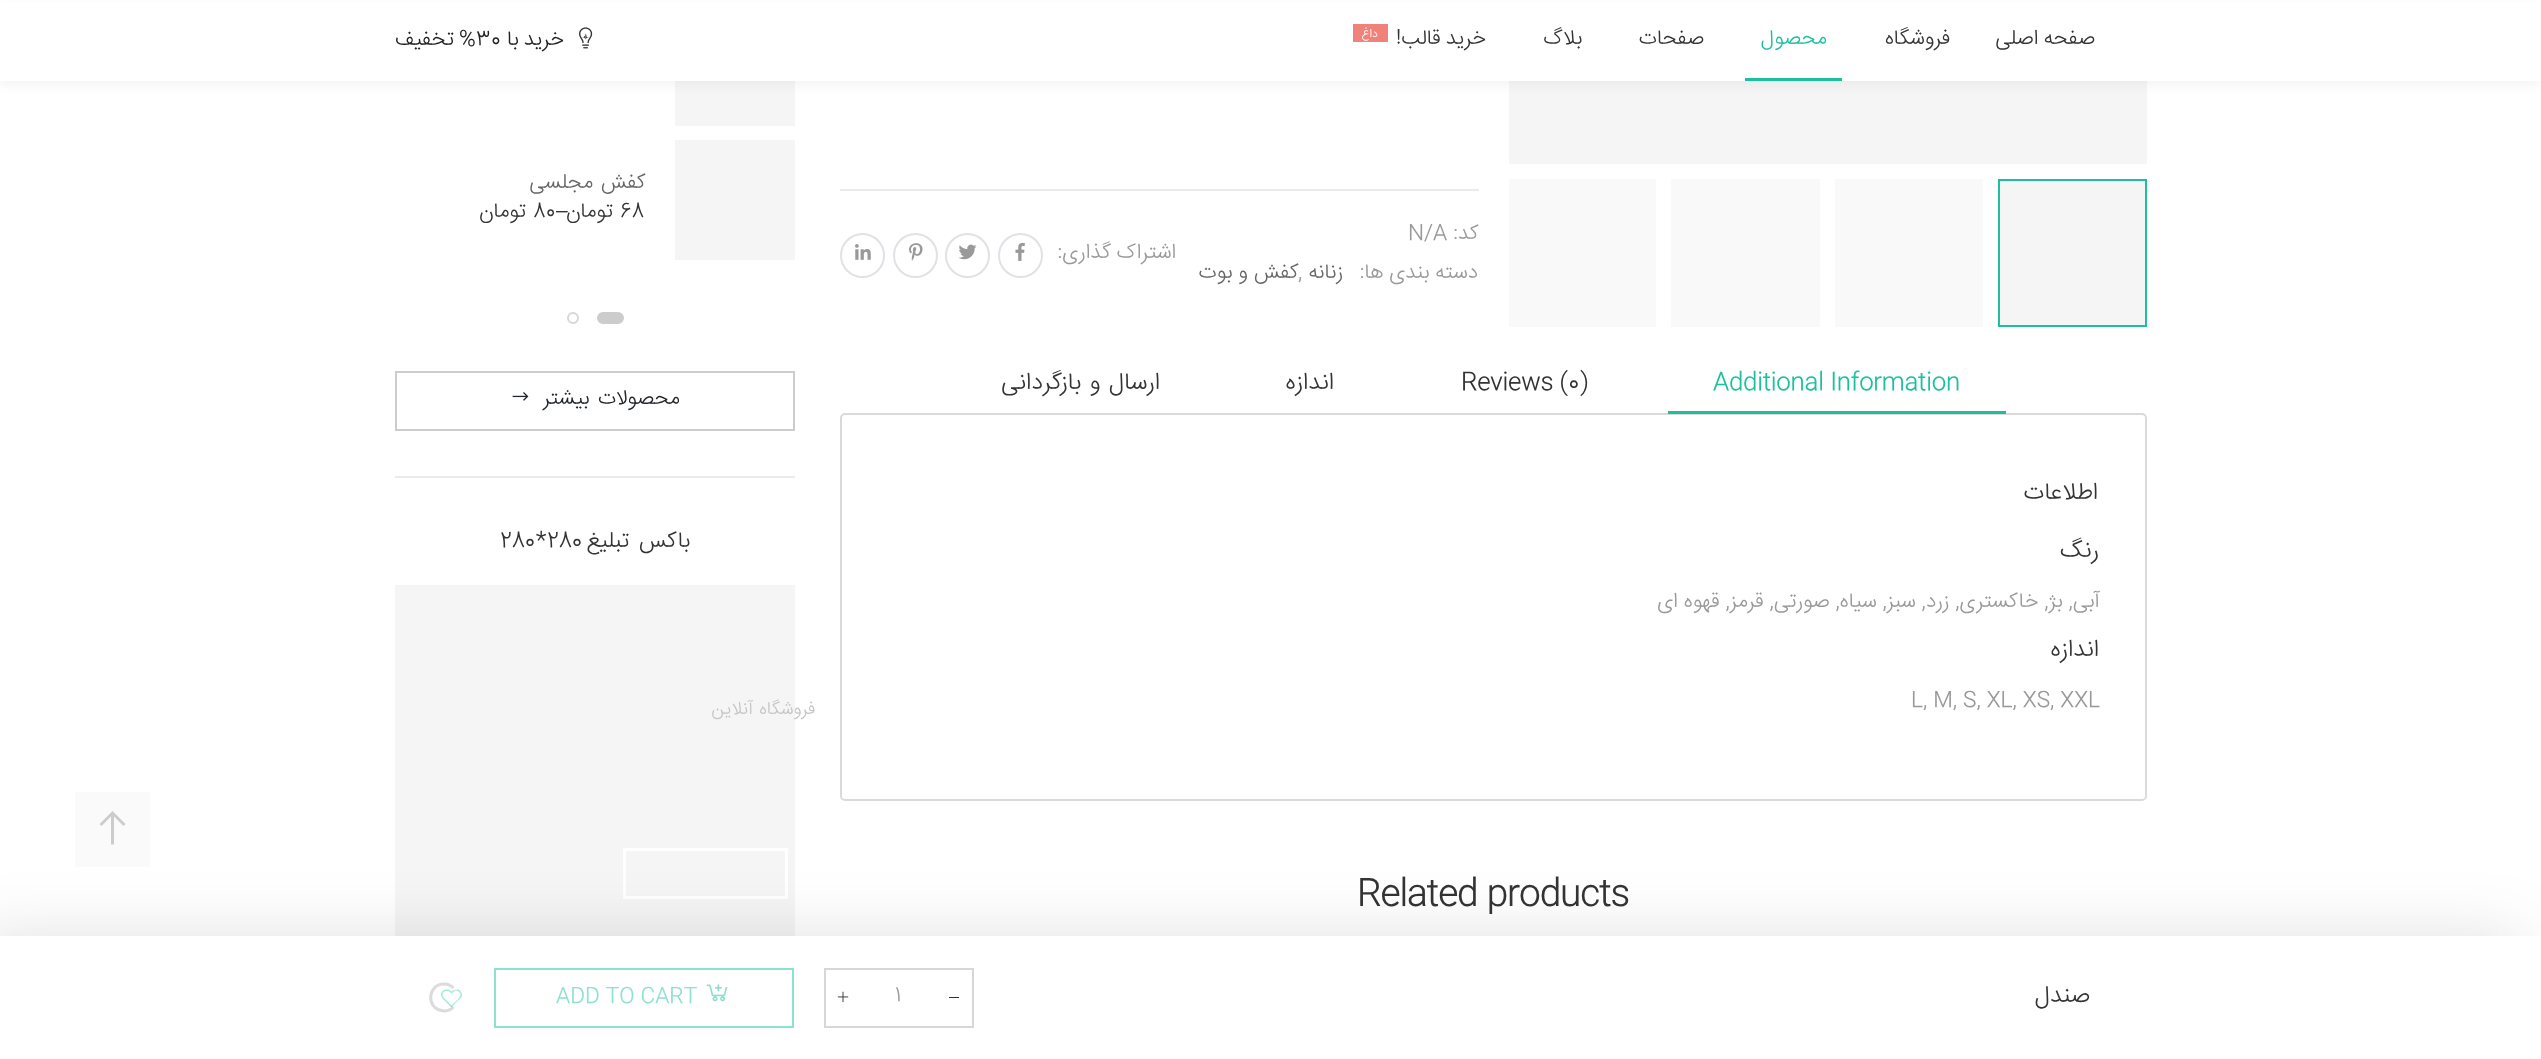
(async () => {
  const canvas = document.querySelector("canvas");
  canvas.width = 2541;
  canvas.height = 1059;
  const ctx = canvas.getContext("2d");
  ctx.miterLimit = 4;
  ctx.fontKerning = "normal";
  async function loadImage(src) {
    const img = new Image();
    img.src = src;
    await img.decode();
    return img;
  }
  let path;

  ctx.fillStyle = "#ffffff";
  ctx.fillRect(0, 0, 2541, 1059);
  ctx.fillStyle = "#f5f5f5";
  ctx.fillRect(675, 81, 120, 45);
  ctx.fillRect(1509, 81, 638, 83);
  ctx.fillStyle = "rgba(51, 51, 51, 0.05)";
  ctx.filter = "blur(4.5px)";
  ctx.beginPath();
  ctx.rect(0, 5, 2541, 81);
  ctx.fill();
  ctx.filter = "none";
  for (const [x, y, w, h, color] of [
    [0, 2, 2541, 79, "#ffffff"],
    [1745, 78, 97, 3, "#1cc0a0"],
    [1353, 24, 35, 18, "#ef837b"],
  ]) {
    ctx.fillStyle = color;
    ctx.fillRect(x, y, w, h);
  }
  ctx.drawImage(await loadImage("img/1.png"), 579, 27, 14, 22);
  ctx.fillStyle = "#f5f5f5";
  ctx.fillRect(675, 140, 120, 120);
  ctx.fillStyle = "#cccccc";
  ctx.beginPath();
  ctx.roundRect(598, 313, 25, 10, 5);
  ctx.fill();
  ctx.strokeStyle = "#cccccc";
  ctx.lineWidth = 2;
  ctx.stroke();
  ctx.beginPath();
  ctx.arc(573, 318, 5, 0, Math.PI * 2);
  ctx.strokeStyle = "#d7d7d7";
  ctx.stroke();
  ctx.strokeStyle = "#cccccc";
  ctx.strokeRect(396, 372, 398, 58);
  ctx.drawImage(await loadImage("img/2.png"), 512, 392, 17, 9);
  ctx.fillStyle = "#ebebeb";
  ctx.fillRect(395, 476, 400, 2);
  ctx.fillStyle = "#f5f5f5";
  ctx.fillRect(395, 585, 400, 351);
  ctx.strokeStyle = "#ffffff";
  ctx.lineWidth = 3;
  ctx.strokeRect(624.5, 849.5, 162, 48);
  ctx.beginPath();
  ctx.rect(1999, 180, 147, 146);
  ctx.fill();
  ctx.strokeStyle = "#1cc0a0";
  ctx.lineWidth = 2;
  ctx.stroke();
  for (const [x, y, w, h, color] of [
    [1835, 179, 148, 148, "#f9f9f9"],
    [1671, 179, 149, 148, "#f9f9f9"],
    [1509, 179, 147, 148, "#f9f9f9"],
    [840, 189, 639, 2, "#ebebeb"],
  ]) {
    ctx.fillStyle = color;
    ctx.fillRect(x, y, w, h);
  }
  ctx.beginPath();
  ctx.arc(1020.5, 255.5, 21.5, 0, Math.PI * 2);
  ctx.strokeStyle = "#e1e2e6";
  ctx.stroke();
  ctx.drawImage(await loadImage("img/3.png"), 1015, 242, 10, 19);
  ctx.beginPath();
  ctx.arc(967.5, 255.5, 21.5, 0, Math.PI * 2);
  ctx.stroke();
  ctx.drawImage(await loadImage("img/4.png"), 958, 244, 19, 16);
  ctx.beginPath();
  ctx.arc(915.5, 255.5, 21.5, 0, Math.PI * 2);
  ctx.stroke();
  ctx.drawImage(await loadImage("img/5.png"), 909, 243, 14, 18);
  ctx.beginPath();
  ctx.arc(862.5, 255.5, 21.5, 0, Math.PI * 2);
  ctx.stroke();
  ctx.drawImage(await loadImage("img/6.png"), 855, 244, 16, 16);
  ctx.fillStyle = "rgba(51, 51, 51, 0.15)";
  ctx.filter = "blur(32px)";
  ctx.beginPath();
  ctx.rect(-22, 936, 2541, 123);
  ctx.fill();
  ctx.filter = "none";
  ctx.fillStyle = "#ffffff";
  ctx.fillRect(0, 936, 2541, 123);
  ctx.strokeStyle = "#d7d7d7";
  ctx.strokeRect(825, 969, 148, 58);
  ctx.fillStyle = "#333333";
  ctx.fillRect(949, 997, 10, 1);
  ctx.drawImage(await loadImage("img/7.png"), 837, 991, 12, 12);
  ctx.strokeStyle = "#8ee0d0";
  ctx.strokeRect(495, 969, 298, 58);
  ctx.drawImage(await loadImage("img/8.png"), 706, 984, 22, 18);
  ctx.drawImage(await loadImage("img/9.png"), 441, 989, 21, 19);
  path = new Path2D("M453.5 988C458.5 993 458.5 1002 453.5 1007");
  ctx.strokeStyle = "rgba(255, 255, 255, 0.36)";
  ctx.lineWidth = 3;
  ctx.stroke(path);
  path = new Path2D("M453.5 1007C450.5 1010 445.5 1011.5 441.5 1010.5C425.5 1007.5 428 984 444 984C447.5 984 451 985.5 453.5 988");
  ctx.strokeStyle = "rgba(0, 0, 0, 0.14)";
  ctx.stroke(path);
  ctx.beginPath();
  ctx.roundRect(841, 414, 1305, 386, 4);
  ctx.strokeStyle = "#dadada";
  ctx.lineWidth = 2;
  ctx.stroke();
  ctx.fillStyle = "#ffffff";
  ctx.beginPath();
  ctx.roundRect(1668, 359, 338, 55, [6, 6, 0, 0]);
  ctx.fill();
  ctx.fillStyle = "#1cc0a0";
  ctx.fillRect(1668, 411, 338, 3);
  ctx.fillStyle = "#fafafa";
  ctx.fillRect(75, 792, 75, 75);
  ctx.fillStyle = "#cccccc";
  path = new Path2D("M112.5 811L125.5 824L123.5 826L114 816.5V844.5H111V816.5L101.5 826L99.5 824Z");
  ctx.fill(path);
  ctx.letterSpacing = "0.25px";
  ctx.wordSpacing = "-1px";
  ctx.direction = "rtl";
  ctx.font = "300 21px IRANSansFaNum";
  ctx.fillStyle = "#333333";
  ctx.fillText("صفحه اصلی", 2095, 44);
  ctx.wordSpacing = "0px";
  ctx.fillText("فروشگاه", 1950, 44);
  ctx.fillStyle = "#1cc0a0";
  ctx.fillText("محصول", 1827, 44);
  ctx.fillStyle = "#333333";
  ctx.fillText("صفحات", 1704, 44);
  ctx.fillText("بلاگ", 1582, 44);
  ctx.wordSpacing = "-1px";
  ctx.fillText("خرید قالب!", 1486, 44);
  ctx.letterSpacing = "0px";
  ctx.wordSpacing = "0px";
  ctx.font = "300 12px IRANSansFaNum";
  ctx.fillStyle = "#ffffff";
  ctx.fillText("داغ", 1378, 37);
  ctx.letterSpacing = "0.25px";
  ctx.wordSpacing = "-1px";
  ctx.font = "300 21px IRANSansFaNum";
  ctx.fillStyle = "#222222";
  ctx.fillText("خرید با", 564, 45);
  ctx.fillText("% تخفیف", 476, 45);
  ctx.wordSpacing = "0px";
  ctx.direction = "ltr";
  ctx.fillText("30", 476, 45);
  ctx.letterSpacing = "-0.25px";
  ctx.wordSpacing = "2px";
  ctx.direction = "rtl";
  ctx.fillStyle = "#666666";
  ctx.fillText("کفش مجلسی", 645, 188);
  ctx.wordSpacing = "0px";
  ctx.direction = "ltr";
  ctx.fillStyle = "#333333";
  ctx.fillText("68", 620, 217);
  ctx.direction = "rtl";
  ctx.fillText("تومان", 613, 217);
  ctx.direction = "ltr";
  ctx.font = "21px Liberation Sans";
  ctx.fillText("–", 556, 217);
  ctx.font = "300 21px IRANSansFaNum";
  ctx.fillText("80", 533, 217);
  ctx.direction = "rtl";
  ctx.fillText("تومان", 526, 217);
  ctx.wordSpacing = "3px";
  ctx.fillStyle = "#212529";
  ctx.fillText("محصولات بیشتر", 680, 404);
  ctx.letterSpacing = "-0.75px";
  ctx.wordSpacing = "4px";
  ctx.font = "300 22.5px IRANSansFaNum";
  ctx.fillStyle = "#333333";
  ctx.fillText("باکس تبلیغ", 690, 547);
  ctx.wordSpacing = "0px";
  ctx.direction = "ltr";
  for (const [text, x, y] of [
    ["280", 547, 547],
    ["*", 536, 547],
    ["280", 500, 547],
  ]) {
    ctx.fillText(text, x, y);
  }
  ctx.letterSpacing = "2.1px";
  ctx.wordSpacing = "-1px";
  ctx.direction = "rtl";
  ctx.font = "300 18px IRANSansFaNum";
  ctx.fillStyle = "#c5c5c5";
  ctx.fillText("فروشگاه آنلاین", 815, 714);
  ctx.letterSpacing = "0px";
  ctx.wordSpacing = "0px";
  ctx.font = "300 21px IRANSansFaNum";
  ctx.fillStyle = "#999999";
  ctx.fillText("کد:", 1478, 239);
  ctx.direction = "ltr";
  ctx.fillText("N/A", 1408, 239);
  ctx.direction = "rtl";
  ctx.fillText("دسته بندی ها:", 1478, 278);
  ctx.fillStyle = "#666666";
  ctx.fillText("زنانه", 1343, 278);
  ctx.direction = "ltr";
  ctx.fillStyle = "#999999";
  ctx.fillText(",", 1298, 278);
  ctx.direction = "rtl";
  ctx.fillStyle = "#666666";
  ctx.fillText("کفش و بوت", 1298, 278);
  ctx.fillStyle = "#999999";
  ctx.fillText("اشتراک گذاری:", 1176, 258);
  ctx.letterSpacing = "-0.5px";
  ctx.font = "300 24px IRANSansFaNum";
  ctx.fillStyle = "#333333";
  ctx.fillText("صندل", 2090, 1002);
  ctx.letterSpacing = "0px";
  ctx.direction = "ltr";
  ctx.font = "300 21px IRANSansFaNum";
  ctx.fillStyle = "#999999";
  ctx.fillText("1", 895, 1001);
  ctx.fillStyle = "#8ee0d0";
  ctx.fillText("ADD TO CART", 556, 1002);
  ctx.letterSpacing = "-0.25px";
  ctx.font = "300 24px IRANSansFaNum";
  ctx.fillStyle = "#1cc0a0";
  ctx.fillText("Additional Information", 1713, 389);
  ctx.fillStyle = "#333333";
  ctx.fillText("Reviews (0)", 1461, 389);
  ctx.direction = "rtl";
  ctx.fillText("اندازه", 1334, 389);
  ctx.wordSpacing = "2px";
  ctx.fillText("ارسال و بازگردانی", 1160, 389);
  ctx.wordSpacing = "0px";
  ctx.fillText("اطلاعات", 2098, 499);
  ctx.fillText("رنگ", 2099, 557);
  ctx.letterSpacing = "0px";
  ctx.font = "300 21px IRANSansFaNum";
  ctx.fillStyle = "#999999";
  ctx.fillText("آبی, بژ, خاکستری, زرد, سبز, سیاه, صورتی, قرمز, قهوه ای", 2100, 607);
  ctx.letterSpacing = "-0.25px";
  ctx.font = "300 24px IRANSansFaNum";
  ctx.fillStyle = "#333333";
  ctx.fillText("اندازه", 2099, 656);
  ctx.letterSpacing = "0px";
  ctx.direction = "ltr";
  ctx.font = "300 21px IRANSansFaNum";
  ctx.fillStyle = "#999999";
  ctx.fillText("L, M, S, XL, XS, XXL", 1911, 706);
  ctx.letterSpacing = "-1.1px";
  ctx.font = "300 36px IRANSansFaNum";
  ctx.fillStyle = "#333333";
  ctx.fillText("Related products", 1357, 904);
})();
